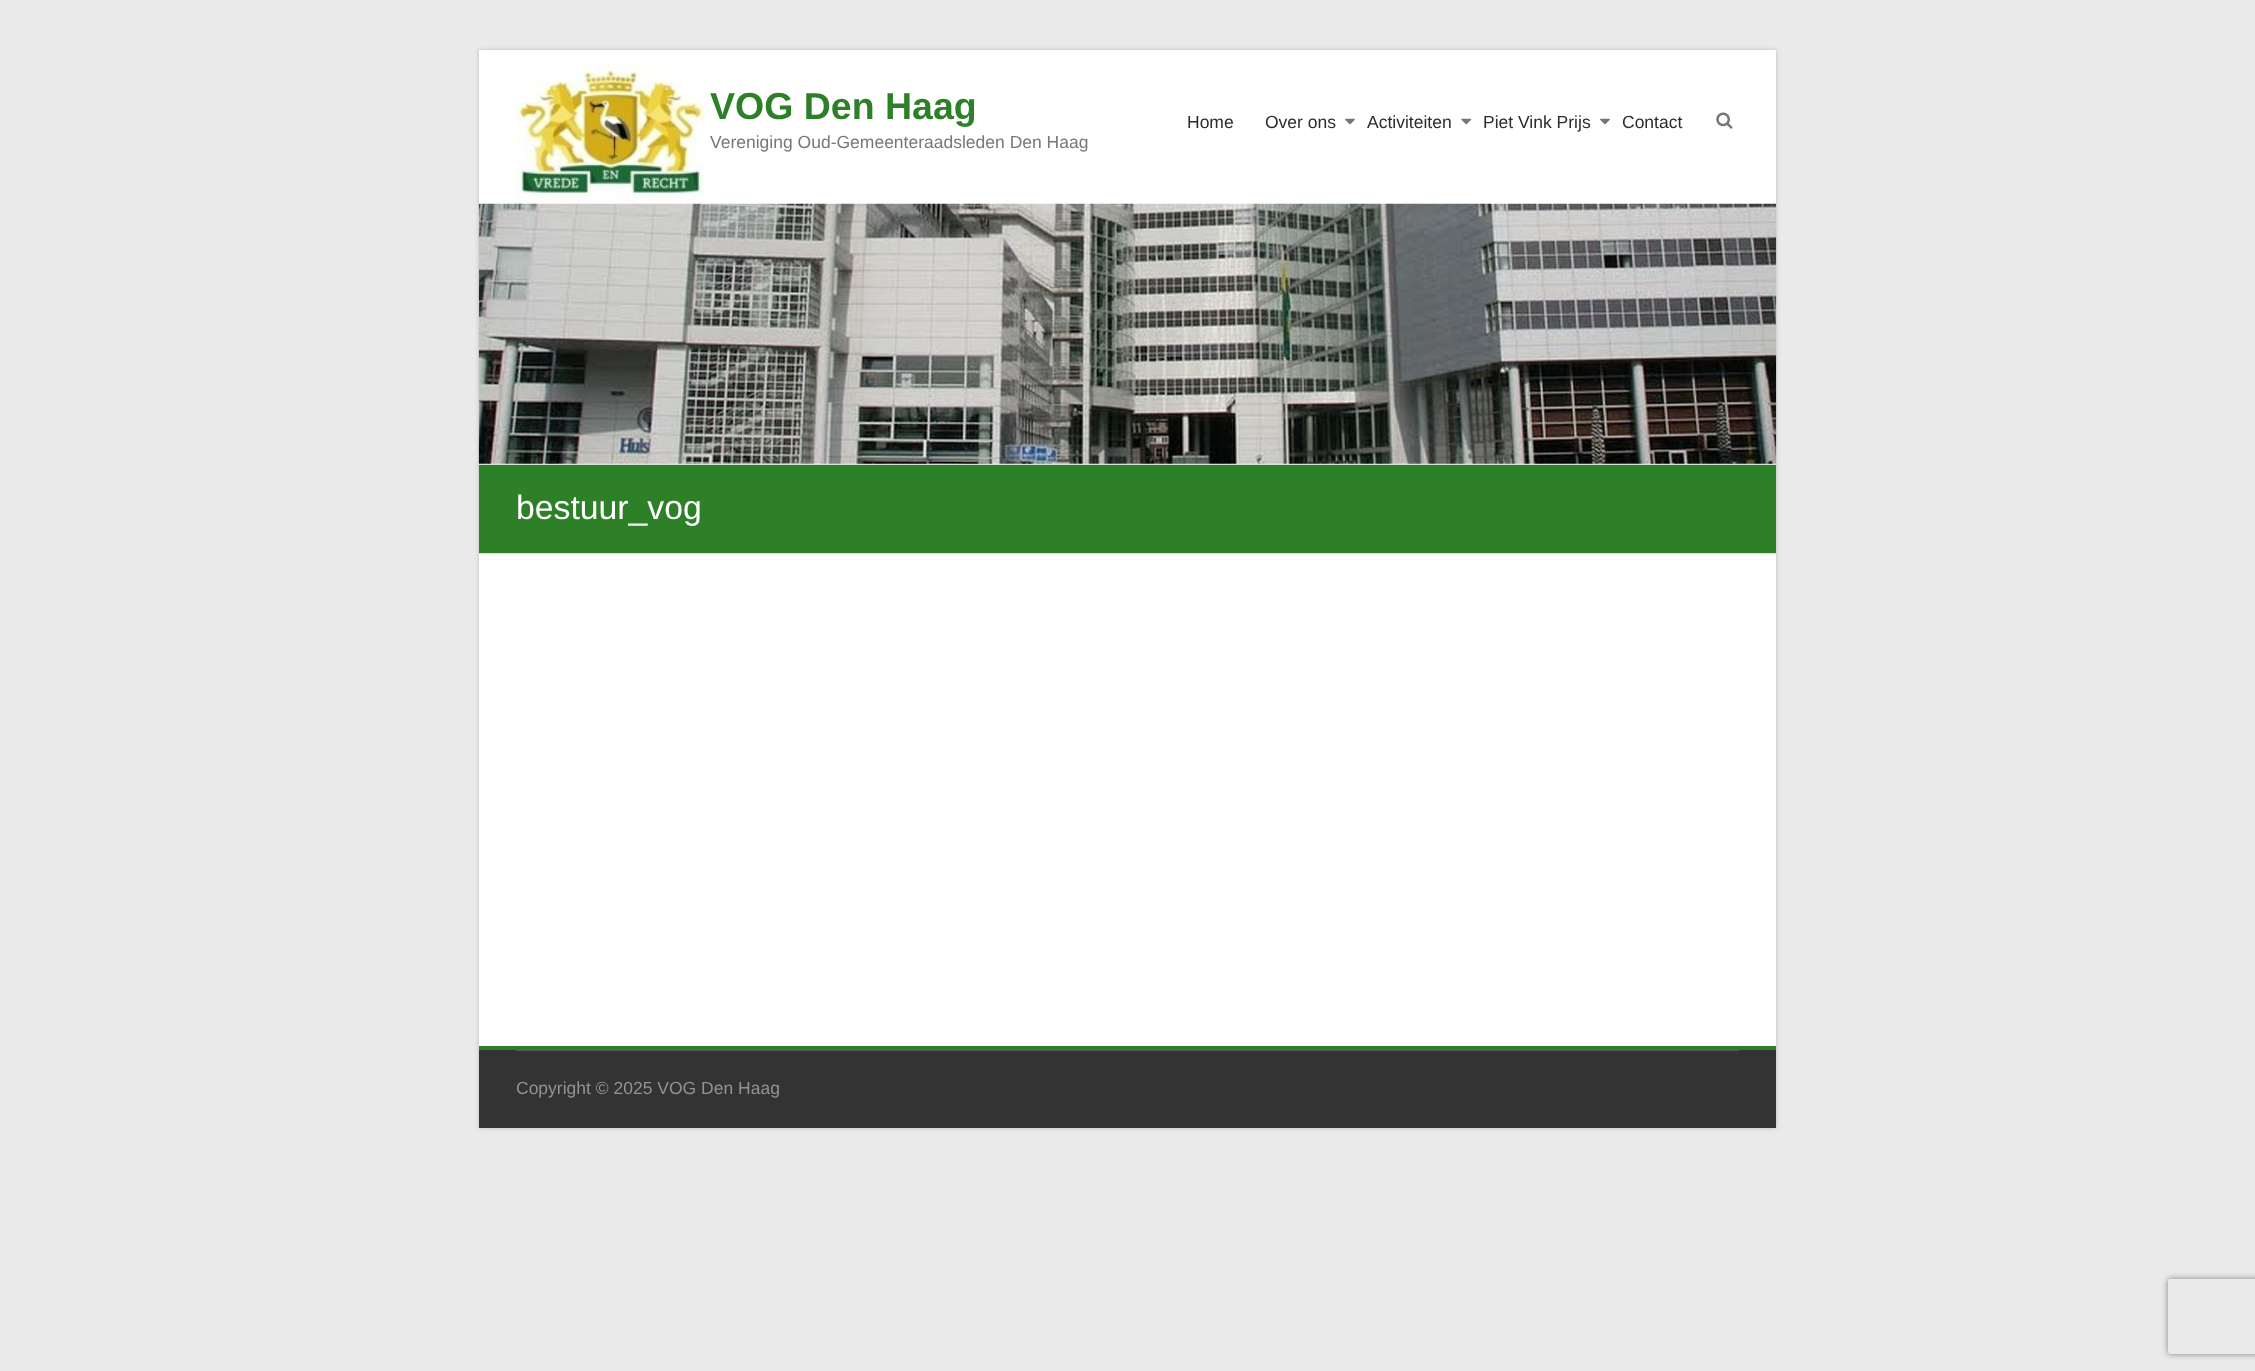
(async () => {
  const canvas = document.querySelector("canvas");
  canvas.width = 2255;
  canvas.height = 1371;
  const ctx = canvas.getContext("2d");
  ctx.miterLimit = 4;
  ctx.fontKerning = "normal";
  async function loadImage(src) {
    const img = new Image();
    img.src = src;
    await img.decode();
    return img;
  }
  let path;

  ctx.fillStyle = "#eaeaea";
  ctx.fillRect(0, 0, 2255, 1371);
  ctx.fillStyle = "rgba(0, 0, 0, 0.2)";
  ctx.filter = "blur(2px)";
  ctx.beginPath();
  ctx.rect(479, 50, 1297, 1078);
  ctx.fill();
  ctx.filter = "none";
  ctx.fillStyle = "#ffffff";
  ctx.fillRect(479, 50, 1297, 996);
  ctx.drawImage(await loadImage("img/1.png"), 516, 62, 188, 142);
  ctx.drawImage(await loadImage("img/2.png"), 1345, 118, 10, 7);
  ctx.drawImage(await loadImage("img/3.png"), 1461, 118, 11, 7);
  ctx.drawImage(await loadImage("img/2.png"), 1600, 118, 10, 7);
  ctx.drawImage(await loadImage("img/4.png"), 1716, 112, 17, 17);
  ctx.drawImage(await loadImage("img/5.png"), 478, 203, 1299, 261);
  for (const [x, y, w, h, color] of [
    [479, 465, 1297, 88, "#2d7f28"],
    [479, 464, 1297, 1, "#d5e5d4"],
    [479, 553, 1297, 1, "#d5e5d4"],
    [479, 1050, 1297, 78, "#333333"],
    [479, 1046, 1297, 4, "#2d7f28"],
    [516, 1050, 1223, 1, "#52585b"],
  ]) {
    ctx.fillStyle = color;
    ctx.fillRect(x, y, w, h);
  }
  ctx.save();
  path = new Path2D("M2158 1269H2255V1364H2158ZM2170.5 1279H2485.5C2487 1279 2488 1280 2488 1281.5V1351.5C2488 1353 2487 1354 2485.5 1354H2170.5C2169 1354 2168 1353 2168 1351.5V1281.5C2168 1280 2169 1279 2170.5 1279Z");
  ctx.clip(path, "evenodd");
  ctx.fillStyle = "#808080";
  ctx.filter = "blur(3px)";
  ctx.beginPath();
  ctx.roundRect(2168, 1279, 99, 75, 2.5);
  ctx.fill();
  ctx.filter = "none";
  ctx.restore();
  ctx.font = "bold 37.5px Liberation Sans";
  ctx.fillStyle = "#2d7f28";
  ctx.fillText("VOG Den Haag", 710, 119);
  ctx.font = "17.5px Liberation Sans";
  ctx.fillStyle = "#777777";
  ctx.fillText("Vereniging Oud-Gemeenteraadsleden Den Haag", 710, 148);
  ctx.fillStyle = "#2c2c2c";
  for (const [text, x, y] of [
    ["Home", 1187, 128],
    ["Over ons", 1265, 128],
    ["Activiteiten", 1367, 128],
    ["Piet Vink Prijs", 1483, 128],
    ["Contact", 1622, 128],
  ]) {
    ctx.fillText(text, x, y);
  }
  ctx.font = "33.75px Liberation Sans";
  ctx.fillStyle = "#ffffff";
  ctx.fillText("bestuur_vog", 516, 519);
  ctx.font = "17.5px Liberation Sans";
  ctx.fillStyle = "#909294";
  ctx.fillText("Copyright © 2025 VOG Den Haag", 516, 1094);
})();
